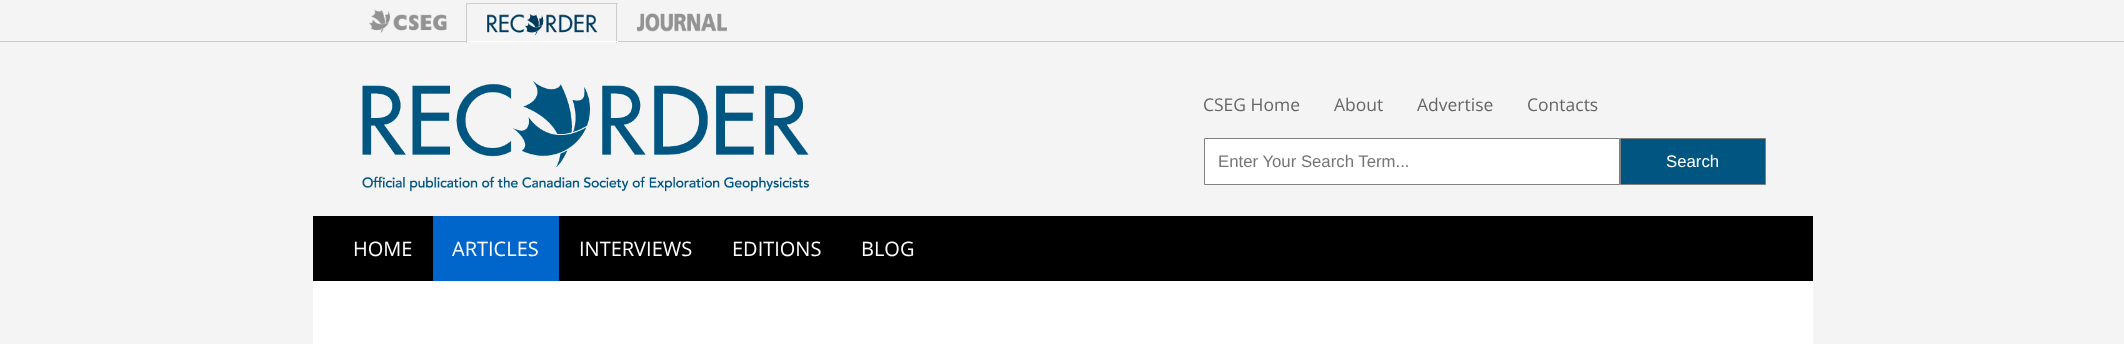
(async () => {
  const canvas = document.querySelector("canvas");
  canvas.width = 2124;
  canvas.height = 344;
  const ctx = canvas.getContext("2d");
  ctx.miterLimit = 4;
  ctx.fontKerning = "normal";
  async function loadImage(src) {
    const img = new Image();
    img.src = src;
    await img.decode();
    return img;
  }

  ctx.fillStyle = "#f4f4f4";
  ctx.fillRect(0, 0, 2124, 344);
  ctx.fillStyle = "#cccccc";
  ctx.fillRect(0, 41, 2124, 1);
  ctx.drawImage(await loadImage("img/1.png"), 369, 9, 78, 24);
  for (const [x, y, w, h, color] of [
    [467, 41, 151, 1, "#f4f4f4"],
    [466, 3, 152, 1, "#cccccc"],
    [616, 3, 1, 40, "#cccccc"],
    [466, 41, 152, 1, "#ffffff"],
    [466, 3, 1, 40, "#cccccc"],
  ]) {
    ctx.fillStyle = color;
    ctx.fillRect(x, y, w, h);
  }
  ctx.drawImage(await loadImage("img/2.png"), 487, 14, 111, 22);
  ctx.drawImage(await loadImage("img/3.png"), 637, 13, 90, 19);
  ctx.drawImage(await loadImage("img/4.png"), 362, 81, 447, 111);
  ctx.fillStyle = "#ffffff";
  ctx.beginPath();
  ctx.rect(1204.5, 138.5, 415, 46);
  ctx.fill();
  ctx.strokeStyle = "#808080";
  ctx.stroke();
  ctx.fillStyle = "#005581";
  ctx.beginPath();
  ctx.rect(1620.5, 138.5, 145, 46);
  ctx.fill();
  ctx.stroke();
  for (const [x, y, w, h, color] of [
    [313, 216, 1500, 65, "#000000"],
    [433, 216, 126, 65, "#0066cc"],
    [313, 281, 1500, 63, "#ffffff"],
  ]) {
    ctx.fillStyle = color;
    ctx.fillRect(x, y, w, h);
  }
  ctx.font = "17.5px Open Sans";
  ctx.fillStyle = "#666666";
  for (const [text, x, y] of [
    ["CSEG Home", 1203, 111],
    ["About", 1334, 111],
    ["Advertise", 1417, 111],
    ["Contacts", 1527, 111],
  ]) {
    ctx.fillText(text, x, y);
  }
  ctx.font = "16.75px Liberation Sans";
  ctx.fillStyle = "#757575";
  ctx.fillText("Enter Your Search Term...", 1218, 167);
  ctx.fillStyle = "#ffffff";
  ctx.fillText("Search", 1666, 167);
  ctx.font = "20px Open Sans";
  for (const [text, x, y] of [
    ["HOME", 353, 256],
    ["ARTICLES", 452, 256],
    ["INTERVIEWS", 579, 256],
    ["EDITIONS", 732, 256],
    ["BLOG", 861, 256],
  ]) {
    ctx.fillText(text, x, y);
  }
})();
